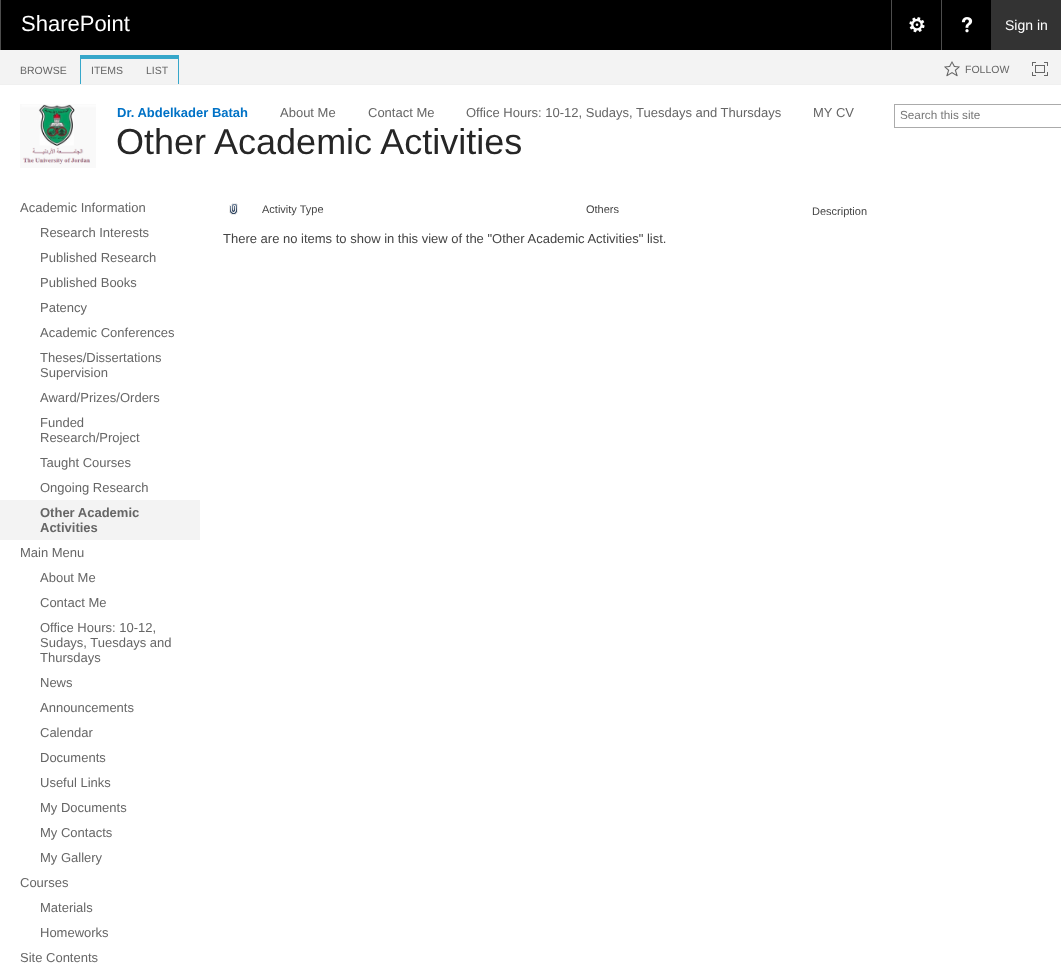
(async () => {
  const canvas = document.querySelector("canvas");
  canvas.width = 1061;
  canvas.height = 978;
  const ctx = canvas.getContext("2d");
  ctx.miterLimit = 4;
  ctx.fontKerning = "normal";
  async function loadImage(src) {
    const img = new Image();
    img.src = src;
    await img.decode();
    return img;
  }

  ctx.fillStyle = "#ffffff";
  ctx.fillRect(0, 0, 1061, 978);
  for (const [x, y, w, h, color] of [
    [1, 0, 990, 50, "#000000"],
    [0, 0, 1, 50, "#4d4d4d"],
    [891, 0, 1, 50, "#4d4d4d"],
  ]) {
    ctx.fillStyle = color;
    ctx.fillRect(x, y, w, h);
  }
  ctx.drawImage(await loadImage("img/1.png"), 909, 17, 16, 16);
  ctx.fillRect(941, 0, 1, 50);
  ctx.drawImage(await loadImage("img/2.png"), 961, 17, 12, 16);
  for (const [x, y, w, h, color] of [
    [991, 0, 70, 50, "#333333"],
    [0, 50, 1061, 34, "#f3f3f3"],
    [0, 84, 1061, 1, "#f0f0f0"],
    [80, 55, 99, 4, "#36a7ca"],
    [80, 59, 1, 25, "#36a7ca"],
    [178, 59, 1, 25, "#36a7ca"],
  ]) {
    ctx.fillStyle = color;
    ctx.fillRect(x, y, w, h);
  }
  ctx.drawImage(await loadImage("img/3.png"), 944, 61, 16, 16);
  ctx.drawImage(await loadImage("img/4.png"), 1032, 62, 16, 14);
  ctx.drawImage(await loadImage("img/5.png"), 20, 104, 76, 64);
  ctx.strokeStyle = "#ababab";
  ctx.strokeRect(894.5, 104.5, 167, 23);
  ctx.fillStyle = "#f3f3f3";
  ctx.fillRect(0, 500, 200, 40);
  ctx.drawImage(await loadImage("img/6.png"), 229, 203, 9, 12);
  ctx.font = "22px Liberation Sans";
  ctx.fillStyle = "#ffffff";
  ctx.fillText("SharePoint", 21, 31);
  ctx.font = "14px Liberation Sans";
  ctx.fillText("Sign in", 1005, 30);
  ctx.font = "10.5px Liberation Sans";
  ctx.fillStyle = "#666666";
  for (const [text, x, y] of [
    ["BROWSE", 20, 74],
    ["ITEMS", 91, 74],
    ["LIST", 146, 74],
    ["FOLLOW", 965, 73],
  ]) {
    ctx.fillText(text, x, y);
  }
  ctx.font = "bold 13px Liberation Sans";
  ctx.fillStyle = "#0072c6";
  ctx.fillText("Dr. Abdelkader Batah", 117, 117);
  ctx.font = "13px Liberation Sans";
  ctx.fillStyle = "#666666";
  for (const [text, x, y] of [
    ["About Me", 280, 117],
    ["Contact Me", 368, 117],
    ["Office Hours: 10-12, Sudays, Tuesdays and Thursdays", 466, 117],
    ["MY CV", 813, 117],
  ]) {
    ctx.fillText(text, x, y);
  }
  ctx.font = "36px Liberation Sans";
  ctx.fillStyle = "#262626";
  ctx.fillText("Other Academic Activities", 116, 154);
  ctx.font = "11.75px Liberation Sans";
  ctx.fillStyle = "#777777";
  ctx.fillText("Search this site", 900, 119);
  ctx.font = "13px Liberation Sans";
  ctx.fillStyle = "#666666";
  for (const [text, x, y] of [
    ["Academic Information", 20, 212],
    ["Research Interests", 40, 237],
    ["Published Research", 40, 262],
    ["Published Books", 40, 287],
    ["Patency", 40, 312],
    ["Academic Conferences", 40, 337],
    ["Theses/Dissertations", 40, 362],
    ["Supervision", 40, 377],
    ["Award/Prizes/Orders", 40, 402],
    ["Funded", 40, 427],
    ["Research/Project", 40, 442],
    ["Taught Courses", 40, 467],
    ["Ongoing Research", 40, 492],
  ]) {
    ctx.fillText(text, x, y);
  }
  ctx.font = "bold 13px Liberation Sans";
  ctx.fillText("Other Academic", 40, 517);
  ctx.fillText("Activities", 40, 532);
  ctx.font = "13px Liberation Sans";
  for (const [text, x, y] of [
    ["Main Menu", 20, 557],
    ["About Me", 40, 582],
    ["Contact Me", 40, 607],
    ["Office Hours: 10-12,", 40, 632],
    ["Sudays, Tuesdays and", 40, 647],
    ["Thursdays", 40, 662],
    ["News", 40, 687],
    ["Announcements", 40, 712],
    ["Calendar", 40, 737],
    ["Documents", 40, 762],
    ["Useful Links", 40, 787],
    ["My Documents", 40, 812],
    ["My Contacts", 40, 837],
    ["My Gallery", 40, 862],
    ["Courses", 20, 887],
    ["Materials", 40, 912],
    ["Homeworks", 40, 937],
    ["Site Contents", 20, 962],
  ]) {
    ctx.fillText(text, x, y);
  }
  ctx.font = "11px Liberation Sans";
  ctx.fillStyle = "#444444";
  for (const [text, x, y] of [
    ["Activity Type", 262, 213],
    ["Others", 586, 213],
    ["Description", 812, 215],
  ]) {
    ctx.fillText(text, x, y);
  }
  ctx.font = "13px Liberation Sans";
  ctx.fillText("There are no items to show in this view of the \"Other Academic Activities\" list.", 223, 243);
})();
